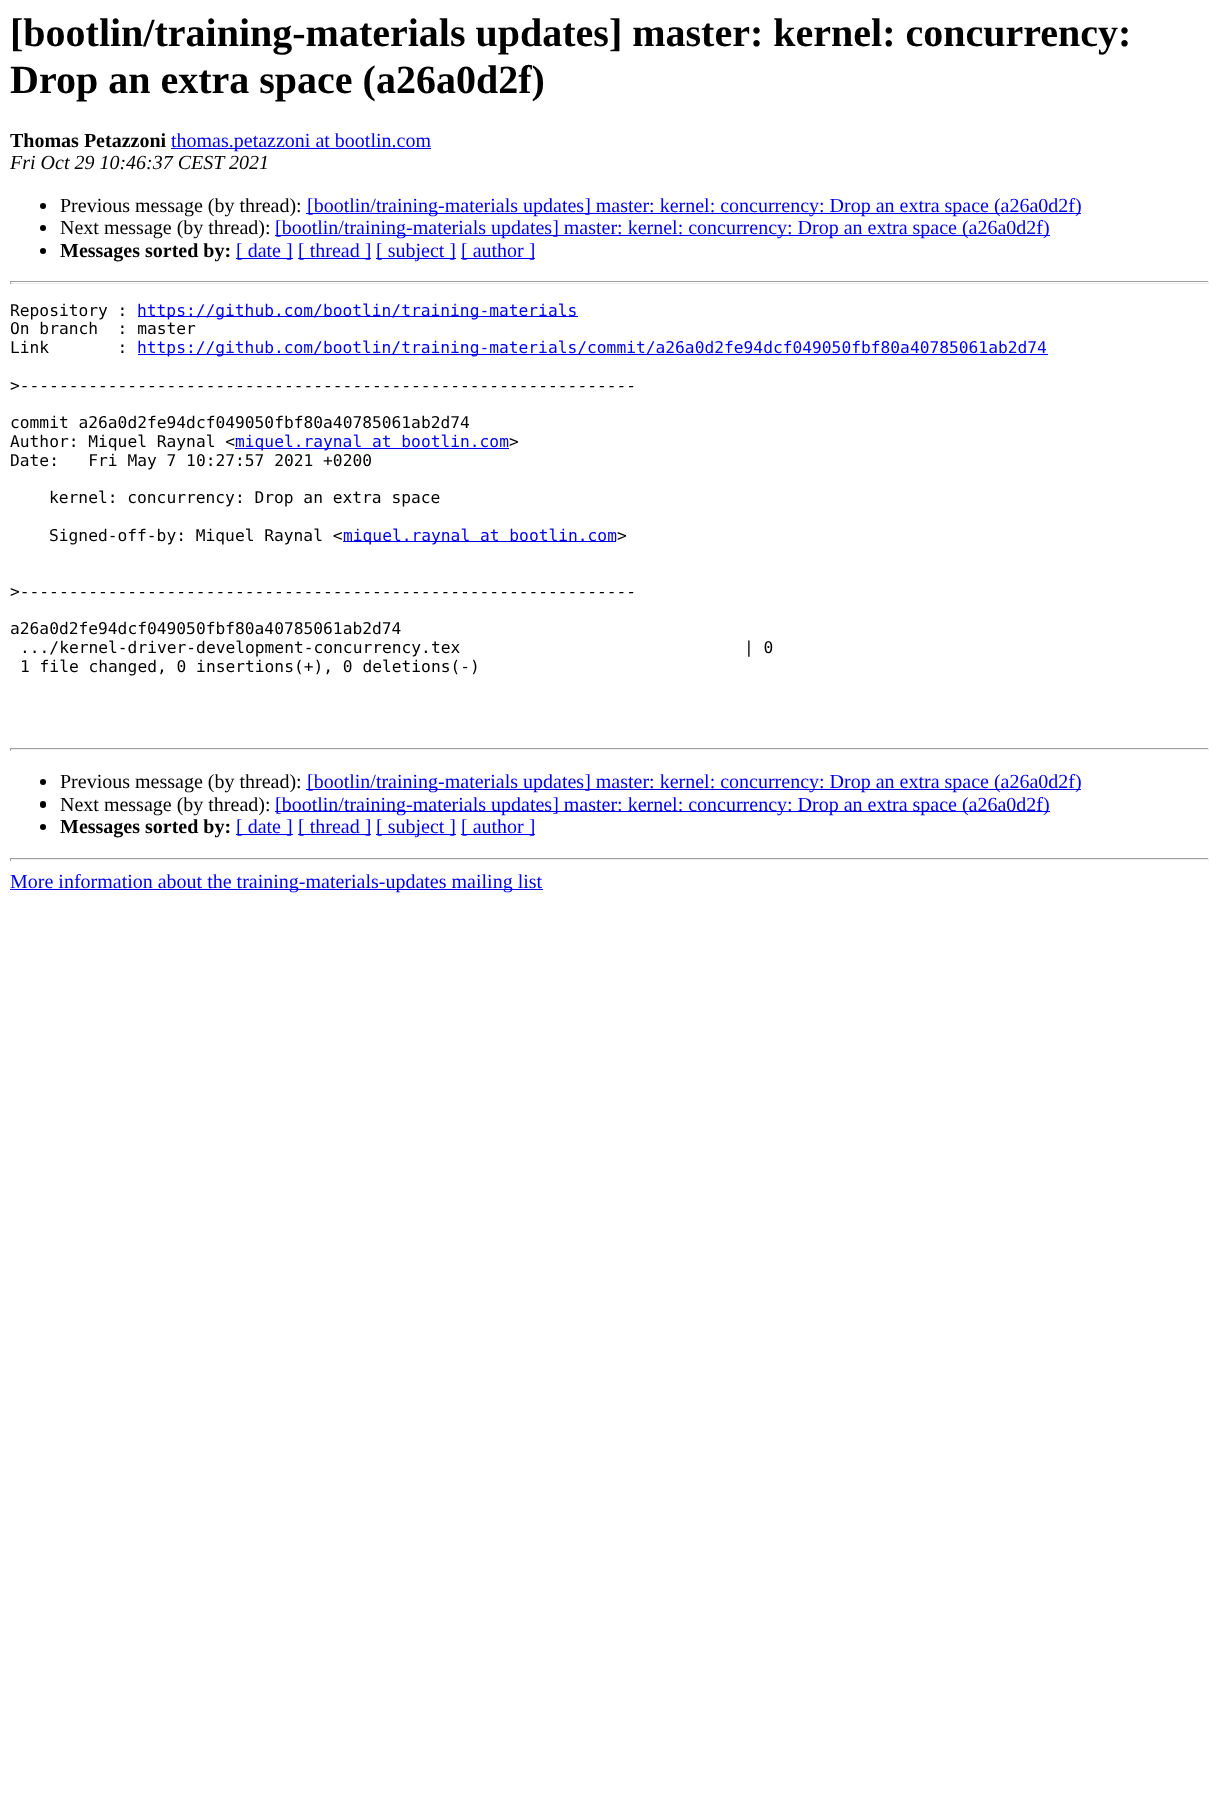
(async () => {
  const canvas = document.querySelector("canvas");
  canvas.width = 1218;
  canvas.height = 1794;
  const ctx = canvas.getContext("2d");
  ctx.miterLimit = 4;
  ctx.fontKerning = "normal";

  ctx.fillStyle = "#ffffff";
  ctx.fillRect(0, 0, 1218, 1794);
  ctx.fillStyle = "#0000ee";
  ctx.fillRect(171, 148, 260, 1);
  ctx.fillStyle = "#000000";
  ctx.beginPath();
  ctx.arc(43, 206, 3, 0, Math.PI * 2);
  ctx.fill();
  ctx.fillStyle = "#0000ee";
  ctx.fillRect(306, 213, 775, 1);
  ctx.fillStyle = "#000000";
  ctx.beginPath();
  ctx.arc(43, 228, 3, 0, Math.PI * 2);
  ctx.fill();
  ctx.fillStyle = "#0000ee";
  ctx.fillRect(275, 235, 775, 1);
  ctx.fillStyle = "#000000";
  ctx.beginPath();
  ctx.arc(43, 251, 3, 0, Math.PI * 2);
  ctx.fill();
  for (const [x, y, w, h, color] of [
    [236, 258, 57, 1, "#0000ee"],
    [298, 258, 73, 1, "#0000ee"],
    [376, 258, 80, 1, "#0000ee"],
    [461, 258, 74, 1, "#0000ee"],
    [10, 281, 1199, 1, "#9f9f9f"],
    [1208, 281, 1, 3, "#eeeeee"],
    [10, 283, 1199, 1, "#eeeeee"],
    [10, 281, 1, 3, "#9f9f9f"],
    [138, 316, 440, 1, "#0000ee"],
    [138, 354, 910, 1, "#0000ee"],
    [235, 448, 274, 1, "#0000ee"],
    [343, 541, 273, 1, "#0000ee"],
    [10, 748, 1199, 1, "#9f9f9f"],
    [1208, 748, 1, 3, "#eeeeee"],
    [10, 749, 1199, 1, "#eeeeee"],
    [10, 748, 1, 3, "#9f9f9f"],
  ]) {
    ctx.fillStyle = color;
    ctx.fillRect(x, y, w, h);
  }
  ctx.fillStyle = "#000000";
  ctx.beginPath();
  ctx.arc(43, 782, 3, 0, Math.PI * 2);
  ctx.fill();
  ctx.fillStyle = "#0000ee";
  ctx.fillRect(306, 789, 775, 1);
  ctx.fillStyle = "#000000";
  ctx.beginPath();
  ctx.roundRect(40, 801, 6, 7, 3);
  ctx.fill();
  ctx.fillStyle = "#0000ee";
  ctx.fillRect(275, 811, 775, 1);
  ctx.fillStyle = "#000000";
  ctx.beginPath();
  ctx.arc(43, 827, 3, 0, Math.PI * 2);
  ctx.fill();
  for (const [x, y, w, h, color] of [
    [236, 834, 57, 1, "#0000ee"],
    [298, 834, 73, 1, "#0000ee"],
    [376, 834, 80, 1, "#0000ee"],
    [461, 834, 74, 1, "#0000ee"],
    [10, 858, 1199, 1, "#9f9f9f"],
    [1208, 858, 1, 3, "#eeeeee"],
    [10, 859, 1199, 1, "#eeeeee"],
    [10, 858, 1, 3, "#9f9f9f"],
    [10, 889, 533, 1, "#0000ee"],
  ]) {
    ctx.fillStyle = color;
    ctx.fillRect(x, y, w, h);
  }
  ctx.font = "bold 40px Liberation Serif";
  ctx.fillStyle = "#000000";
  ctx.fillText("[bootlin/training-materials updates] master: kernel: concurrency:", 10, 46);
  ctx.fillText("Drop an extra space (a26a0d2f)", 10, 93);
  ctx.font = "bold 20px Liberation Serif";
  ctx.fillText("Thomas Petazzoni", 10, 147);
  ctx.font = "20px Liberation Serif";
  ctx.fillStyle = "#0000ee";
  ctx.fillText("thomas.petazzoni at bootlin.com", 171, 147);
  ctx.font = "italic 20px Liberation Serif";
  ctx.fillStyle = "#000000";
  ctx.fillText("Fri Oct 29 10:46:37 CEST 2021", 10, 169);
  ctx.font = "20px Liberation Serif";
  ctx.fillText("Previous message (by thread):", 60, 212);
  ctx.fillStyle = "#0000ee";
  ctx.fillText("[bootlin/training-materials updates] master: kernel: concurrency: Drop an extra space (a26a0d2f)", 307, 212);
  ctx.fillStyle = "#000000";
  ctx.fillText("Next message (by thread):", 60, 234);
  ctx.fillStyle = "#0000ee";
  ctx.fillText("[bootlin/training-materials updates] master: kernel: concurrency: Drop an extra space (a26a0d2f)", 275, 234);
  ctx.font = "bold 20px Liberation Serif";
  ctx.fillStyle = "#000000";
  ctx.fillText("Messages sorted by:", 60, 257);
  ctx.font = "20px Liberation Serif";
  ctx.fillStyle = "#0000ee";
  for (const [text, x, y] of [
    ["[ date ]", 236, 257],
    ["[ thread ]", 298, 257],
    ["[ subject ]", 376, 257],
    ["[ author ]", 461, 257],
  ]) {
    ctx.fillText(text, x, y);
  }
  ctx.font = "16.25px DejaVu Sans Mono";
  ctx.fillStyle = "#000000";
  ctx.fillText("Repository :", 10, 316);
  ctx.fillStyle = "#0000ee";
  ctx.fillText("https://github.com/bootlin/training-materials", 137, 316);
  ctx.fillStyle = "#000000";
  ctx.fillText("On branch  : master", 10, 334);
  ctx.fillText("Link       :", 10, 353);
  ctx.fillStyle = "#0000ee";
  ctx.fillText("https://github.com/bootlin/training-materials/commit/a26a0d2fe94dcf049050fbf80a40785061ab2d74", 137, 353);
  ctx.fillStyle = "#000000";
  ctx.fillText(">", 10, 391);
  ctx.font = "italic 16.25px DejaVu Sans Mono";
  ctx.fillText("---------------------------------------------------------------", 20, 391);
  ctx.font = "16.25px DejaVu Sans Mono";
  ctx.fillText("commit a26a0d2fe94dcf049050fbf80a40785061ab2d74", 10, 428);
  ctx.fillText("Author: Miquel Raynal <", 10, 447);
  ctx.fillStyle = "#0000ee";
  ctx.fillText("miquel.raynal at bootlin.com", 235, 447);
  ctx.fillStyle = "#000000";
  for (const [text, x, y] of [
    [">", 509, 447],
    ["Date:   Fri May 7 10:27:57 2021 +0200", 10, 466],
    ["kernel: concurrency: Drop an extra space", 49, 503],
    ["Signed-off-by: Miquel Raynal <", 49, 541],
  ]) {
    ctx.fillText(text, x, y);
  }
  ctx.fillStyle = "#0000ee";
  ctx.fillText("miquel.raynal at bootlin.com", 343, 541);
  ctx.fillStyle = "#000000";
  ctx.fillText(">", 617, 541);
  ctx.fillText(">", 10, 597);
  ctx.font = "italic 16.25px DejaVu Sans Mono";
  ctx.fillText("---------------------------------------------------------------", 20, 597);
  ctx.font = "16.25px DejaVu Sans Mono";
  for (const [text, x, y] of [
    ["a26a0d2fe94dcf049050fbf80a40785061ab2d74", 10, 634],
    [".../kernel-driver-development-concurrency.tex                             | 0", 20, 653],
    ["1 file changed, 0 insertions(+), 0 deletions(-)", 20, 672],
  ]) {
    ctx.fillText(text, x, y);
  }
  ctx.font = "20px Liberation Serif";
  ctx.fillText("Previous message (by thread):", 60, 788);
  ctx.fillStyle = "#0000ee";
  ctx.fillText("[bootlin/training-materials updates] master: kernel: concurrency: Drop an extra space (a26a0d2f)", 307, 788);
  ctx.fillStyle = "#000000";
  ctx.fillText("Next message (by thread):", 60, 811);
  ctx.fillStyle = "#0000ee";
  ctx.fillText("[bootlin/training-materials updates] master: kernel: concurrency: Drop an extra space (a26a0d2f)", 275, 811);
  ctx.font = "bold 20px Liberation Serif";
  ctx.fillStyle = "#000000";
  ctx.fillText("Messages sorted by:", 60, 833);
  ctx.font = "20px Liberation Serif";
  ctx.fillStyle = "#0000ee";
  for (const [text, x, y] of [
    ["[ date ]", 236, 833],
    ["[ thread ]", 298, 833],
    ["[ subject ]", 376, 833],
    ["[ author ]", 461, 833],
    ["More information about the training-materials-updates mailing list", 10, 888],
  ]) {
    ctx.fillText(text, x, y);
  }
})();
